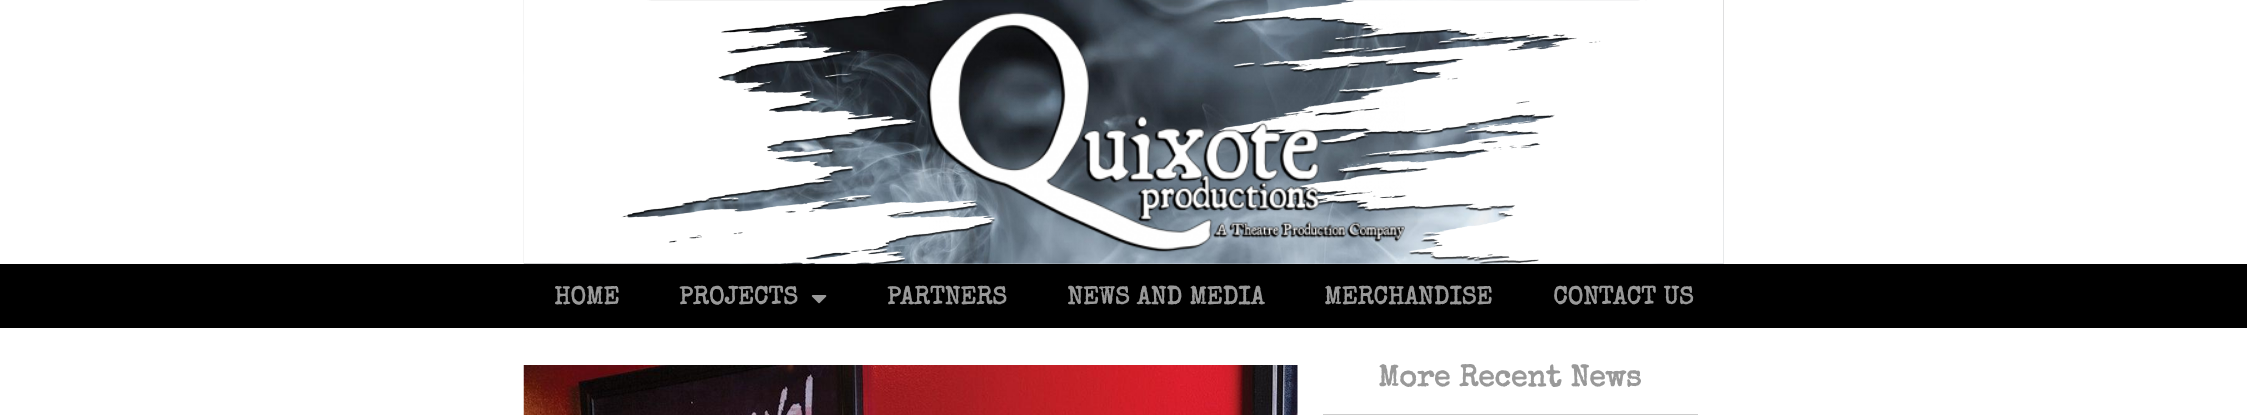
(async () => {
  const canvas = document.querySelector("canvas");
  canvas.width = 2247;
  canvas.height = 415;
  const ctx = canvas.getContext("2d");
  ctx.miterLimit = 4;
  ctx.fontKerning = "normal";
  async function loadImage(src) {
    const img = new Image();
    img.src = src;
    await img.decode();
    return img;
  }

  ctx.fillStyle = "#ffffff";
  ctx.fillRect(0, 0, 2247, 415);
  ctx.drawImage(await loadImage("img/1.png"), 523, 0, 1201, 264);
  ctx.drawImage(await loadImage("img/2.png"), 523, 0, 1201, 264);
  ctx.drawImage(await loadImage("img/3.png"), 926, 12, 479, 240);
  ctx.fillStyle = "#000000";
  ctx.fillRect(0, 264, 2247, 64);
  ctx.drawImage(await loadImage("img/4.png"), 811, 295, 16, 9);
  ctx.drawImage(await loadImage("img/5.png"), 523, 365, 775, 50);
  ctx.fillStyle = "#cccccc";
  ctx.fillRect(1323, 414, 375, 1);
  ctx.font = "bold 25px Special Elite";
  ctx.fillStyle = "#999999";
  for (const [text, x, y] of [
    ["HOME", 554, 304],
    ["PROJECTS", 679, 304],
    ["PARTNERS", 887, 304],
    ["NEWS AND MEDIA", 1067, 304],
    ["MERCHANDISE", 1324, 304],
    ["CONTACT US", 1553, 304],
  ]) {
    ctx.fillText(text, x, y);
  }
  ctx.font = "bold 30px Special Elite";
  ctx.fillText("More Recent News", 1378, 386);
})();
